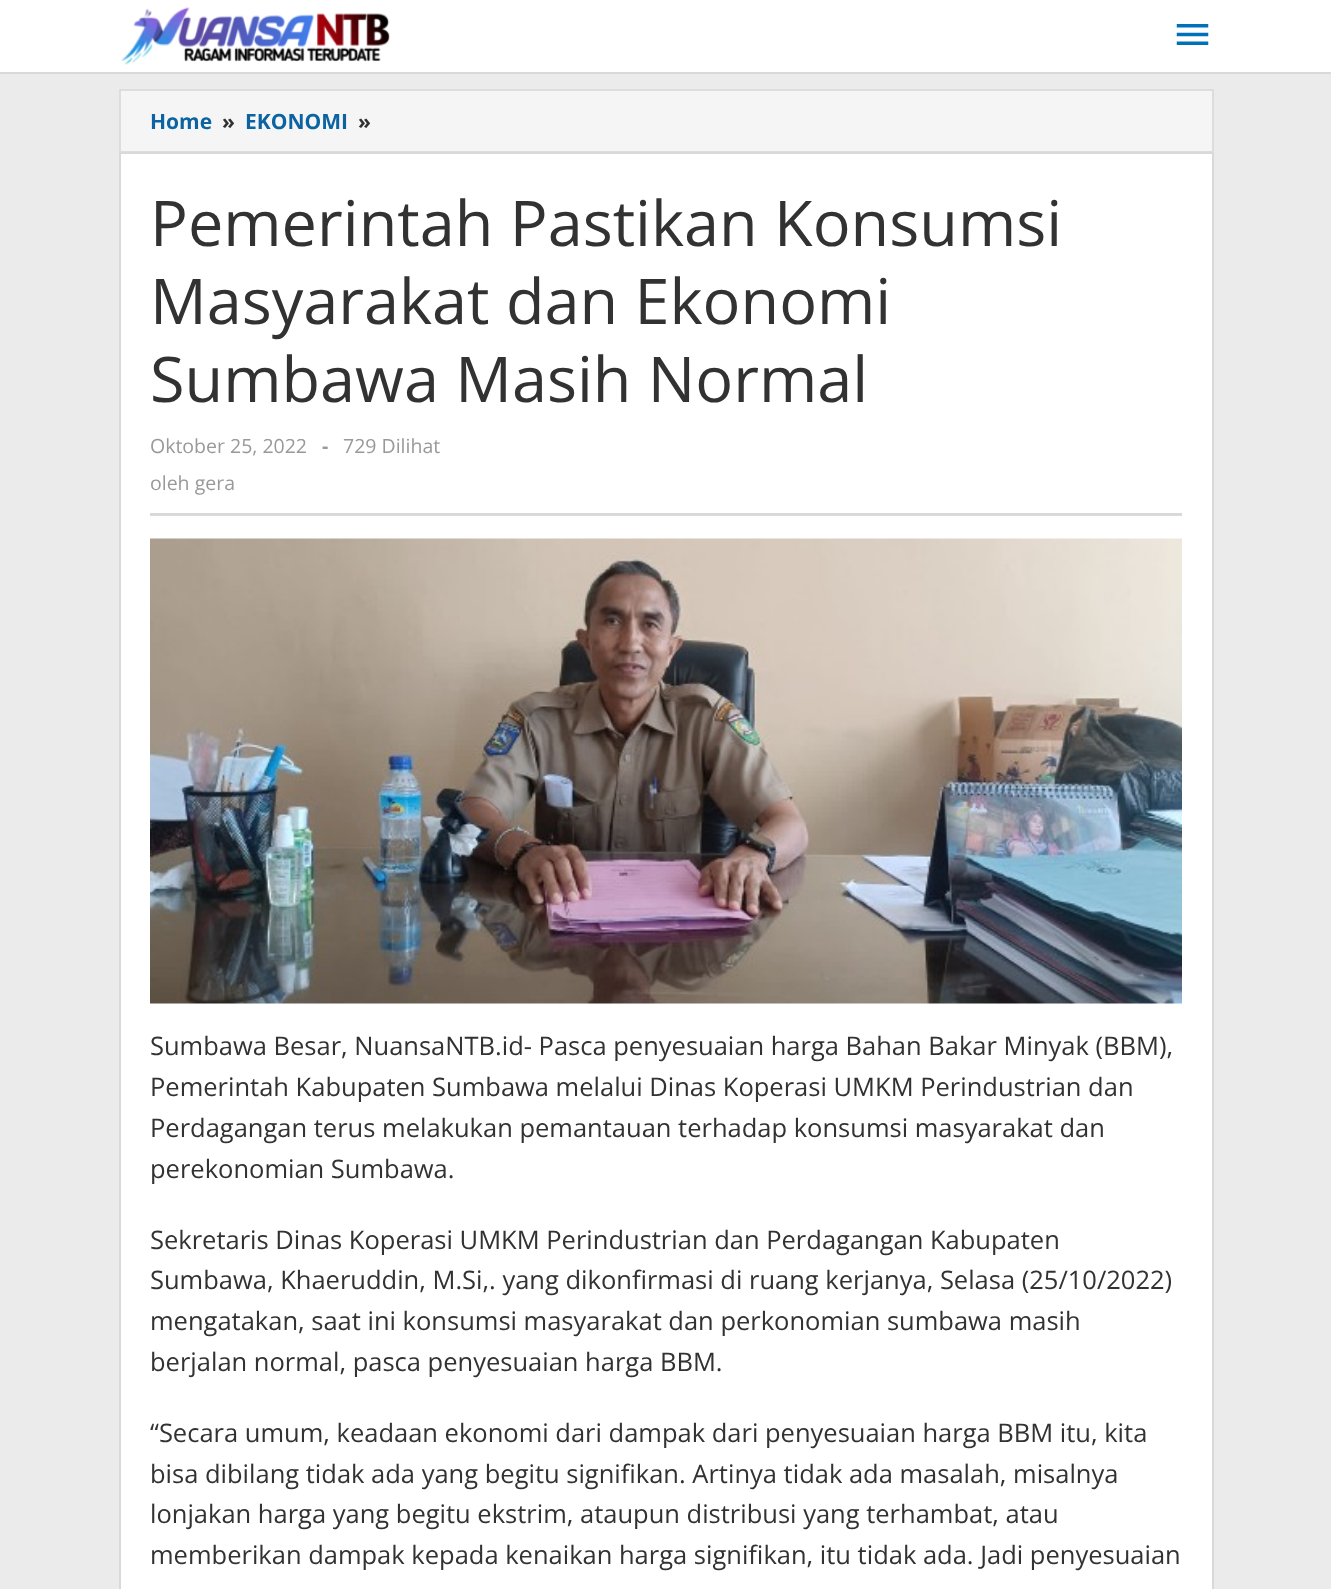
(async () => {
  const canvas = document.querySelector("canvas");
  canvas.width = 1331;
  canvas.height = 1589;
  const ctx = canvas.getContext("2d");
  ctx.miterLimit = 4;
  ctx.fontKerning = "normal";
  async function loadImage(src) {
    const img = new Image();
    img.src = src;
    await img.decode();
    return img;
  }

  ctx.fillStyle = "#ebebeb";
  ctx.fillRect(0, 0, 1331, 1589);
  ctx.fillStyle = "#ffffff";
  ctx.fillRect(0, 0, 1331, 72);
  ctx.fillStyle = "#d9d9d9";
  ctx.fillRect(0, 72, 1331, 2);
  ctx.drawImage(await loadImage("img/1.png"), 121, 7, 269, 58);
  ctx.drawImage(await loadImage("img/2.png"), 1176, 24, 33, 21);
  ctx.fillStyle = "#f5f5f5";
  ctx.beginPath();
  ctx.rect(120, 90, 1093, 62);
  ctx.fill();
  ctx.strokeStyle = "#dddddd";
  ctx.lineWidth = 2;
  ctx.stroke();
  ctx.fillStyle = "#ffffff";
  ctx.beginPath();
  ctx.rect(120, 153, 1093, 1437);
  ctx.fill();
  ctx.strokeStyle = "#d9d9d9";
  ctx.stroke();
  ctx.fillStyle = "#d9d9d9";
  ctx.fillRect(150, 513, 1032, 3);
  ctx.drawImage(await loadImage("img/3.png"), 150, 538, 1032, 466);
  ctx.font = "bold 21px Open Sans";
  ctx.fillStyle = "#0b63a1";
  ctx.fillText("Home", 150, 129);
  ctx.fillStyle = "#323233";
  ctx.fillText("»", 222, 129);
  ctx.fillStyle = "#0b63a1";
  ctx.fillText("EKONOMI", 245, 129);
  ctx.fillStyle = "#323233";
  ctx.fillText("»", 358, 129);
  ctx.font = "63px Open Sans";
  for (const [text, x, y] of [
    ["Pemerintah Pastikan Konsumsi", 150, 246],
    ["Masyarakat dan Ekonomi", 150, 324],
    ["Sumbawa Masih Normal", 150, 402],
  ]) {
    ctx.fillText(text, x, y);
  }
  ctx.font = "19.5px Open Sans";
  ctx.fillStyle = "#999999";
  ctx.fillText("Oktober 25, 2022", 150, 453);
  ctx.font = "bold 19.5px Open Sans";
  ctx.fillText("-", 322, 453);
  ctx.font = "19.5px Open Sans";
  ctx.fillText("729 Dilihat", 343, 453);
  ctx.fillText("oleh gera", 150, 490);
  ctx.font = "25.5px Open Sans";
  ctx.fillStyle = "#323233";
  for (const [text, x, y] of [
    ["Sumbawa Besar, NuansaNTB.id- Pasca penyesuaian harga Bahan Bakar Minyak (BBM),", 150, 1055],
    ["Pemerintah Kabupaten Sumbawa melalui Dinas Koperasi UMKM Perindustrian dan", 150, 1096],
    ["Perdagangan terus melakukan pemantauan terhadap konsumsi masyarakat dan", 150, 1137],
    ["perekonomian Sumbawa.", 150, 1178],
    ["Sekretaris Dinas Koperasi UMKM Perindustrian dan Perdagangan Kabupaten", 150, 1249],
    ["Sumbawa, Khaeruddin, M.Si,. yang dikonfirmasi di ruang kerjanya, Selasa (25/10/2022)", 150, 1289],
    ["mengatakan, saat ini konsumsi masyarakat dan perkonomian sumbawa masih", 150, 1330],
    ["berjalan normal, pasca penyesuaian harga BBM.", 150, 1371],
    ["“Secara umum, keadaan ekonomi dari dampak dari penyesuaian harga BBM itu, kita", 150, 1442],
    ["bisa dibilang tidak ada yang begitu signifikan. Artinya tidak ada masalah, misalnya", 150, 1483],
    ["lonjakan harga yang begitu ekstrim, ataupun distribusi yang terhambat, atau", 150, 1523],
    ["memberikan dampak kepada kenaikan harga signifikan, itu tidak ada. Jadi penyesuaian", 150, 1564],
  ]) {
    ctx.fillText(text, x, y);
  }
})();
